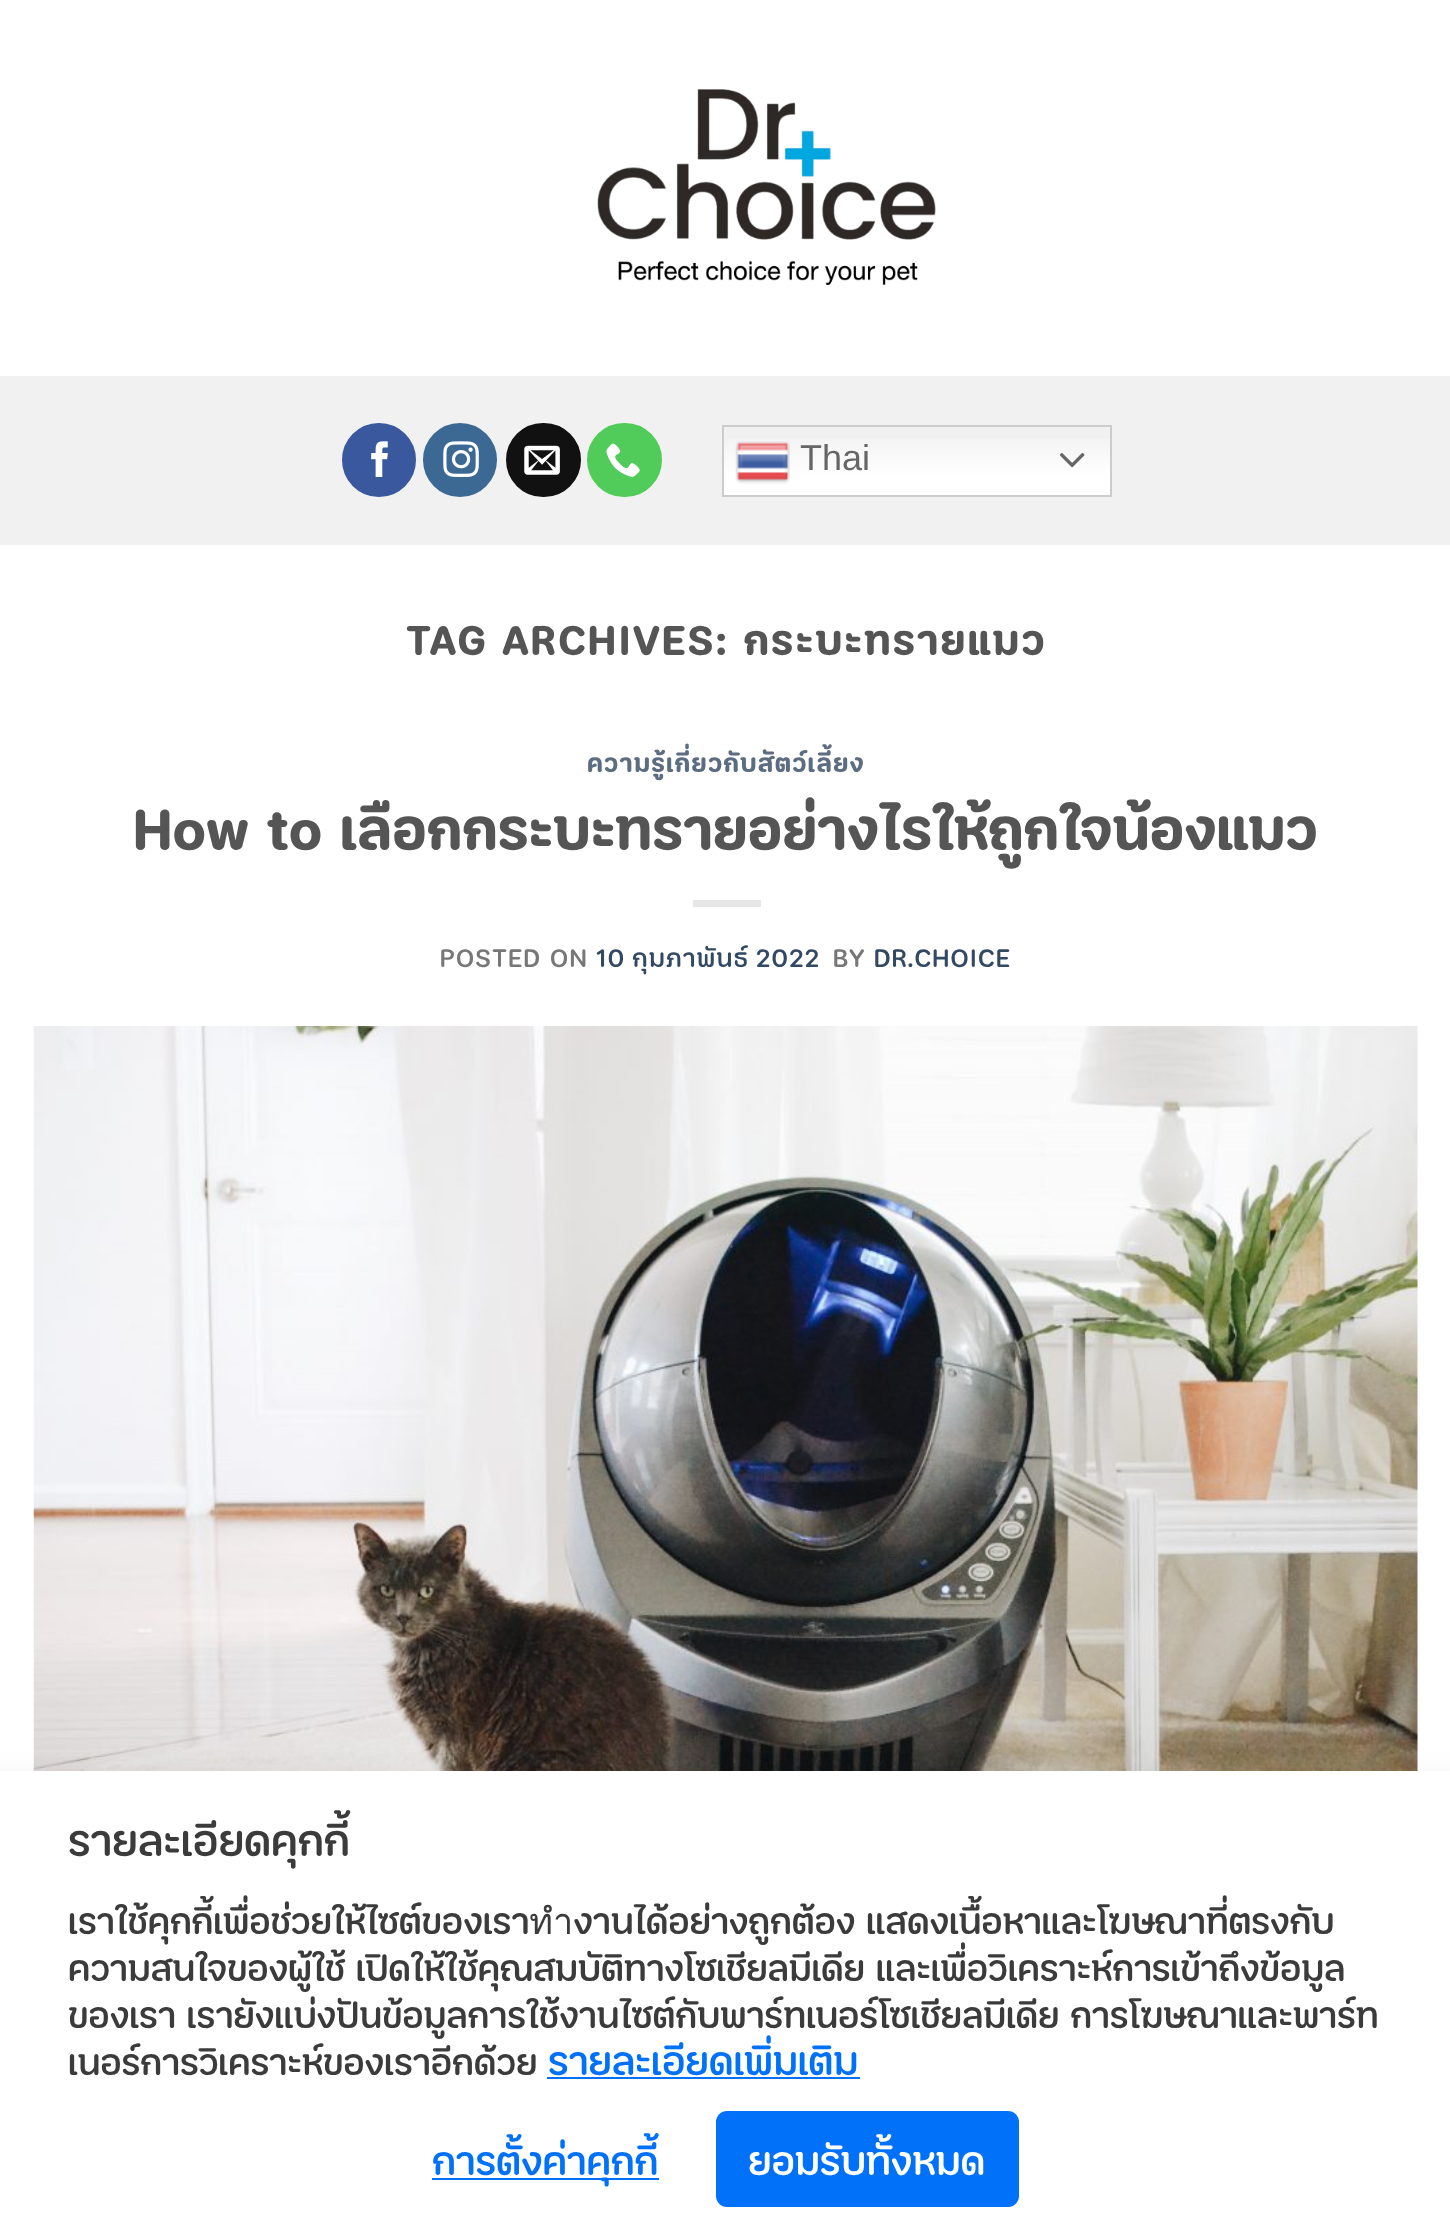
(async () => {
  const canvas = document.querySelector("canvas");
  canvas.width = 1450;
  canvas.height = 2235;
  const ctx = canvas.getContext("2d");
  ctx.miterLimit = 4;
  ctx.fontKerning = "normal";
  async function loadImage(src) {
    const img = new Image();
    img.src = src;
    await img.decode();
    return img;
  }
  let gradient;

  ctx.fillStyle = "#ffffff";
  ctx.fillRect(0, 0, 1450, 2235);
  ctx.drawImage(await loadImage("img/1.png"), 597, 89, 339, 196);
  ctx.fillStyle = "#f1f1f1";
  ctx.fillRect(0, 376, 1450, 169);
  ctx.fillStyle = "#3a589d";
  ctx.beginPath();
  ctx.arc(379, 460, 36, 0, Math.PI * 2);
  ctx.fill();
  ctx.strokeStyle = "#3a589d";
  ctx.lineWidth = 2;
  ctx.stroke();
  ctx.drawImage(await loadImage("img/2.png"), 371, 441, 17, 36);
  ctx.fillStyle = "#3b6994";
  ctx.beginPath();
  ctx.arc(460, 460, 36, 0, Math.PI * 2);
  ctx.fill();
  ctx.strokeStyle = "#3b6994";
  ctx.stroke();
  ctx.drawImage(await loadImage("img/3.png"), 443, 441, 36, 36);
  ctx.fillStyle = "#111111";
  ctx.beginPath();
  ctx.roundRect(507, 424, 73, 72, 36);
  ctx.fill();
  ctx.strokeStyle = "#111111";
  ctx.stroke();
  ctx.drawImage(await loadImage("img/4.png"), 524, 445, 36, 30);
  ctx.fillStyle = "#51cb5a";
  ctx.beginPath();
  ctx.roundRect(588, 424, 73, 72, 36);
  ctx.fill();
  ctx.strokeStyle = "#51cb5a";
  ctx.stroke();
  ctx.drawImage(await loadImage("img/5.png"), 606, 443, 34, 34);
  gradient = ctx.createLinearGradient(917, 425, 917, 497);
  gradient.addColorStop(0, "#efefef");
  gradient.addColorStop(0.7, "#ffffff");
  ctx.fillStyle = gradient;
  ctx.fillRect(724, 439, 386, 56);
  ctx.strokeStyle = "#cccccc";
  ctx.strokeRect(723, 426, 388, 70);
  ctx.drawImage(await loadImage("img/6.png"), 735, 441, 55, 43);
  ctx.drawImage(await loadImage("img/7.png"), 1060, 453, 25, 15);
  ctx.fillStyle = "#e6e6e6";
  ctx.fillRect(693, 900, 68, 7);
  ctx.drawImage(await loadImage("img/8.png"), 33, 1026, 1385, 745);
  ctx.fillStyle = "rgba(0, 0, 0, 0.15)";
  ctx.filter = "blur(18px)";
  ctx.beginPath();
  ctx.rect(-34, 1789, 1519, 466);
  ctx.fill();
  ctx.filter = "none";
  for (const [x, y, w, h, color] of [
    [0, 1771, 1450, 464, "#ffffff"],
    [547, 2077, 313, 2, "#0271f9"],
    [432, 2178, 227, 2, "#0271f9"],
  ]) {
    ctx.fillStyle = color;
    ctx.fillRect(x, y, w, h);
  }
  ctx.beginPath();
  ctx.roundRect(716, 2111, 303, 96, 11);
  ctx.fill();
  ctx.font = "36px Liberation Sans";
  ctx.fillStyle = "#666666";
  ctx.fillText("Thai", 800, 470);
  ctx.letterSpacing = "2.1px";
  ctx.font = "bold 41.4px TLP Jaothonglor";
  ctx.fillStyle = "#555555";
  ctx.fillText("TAG ARCHIVES: กระบะทรายแมว", 406, 655);
  ctx.letterSpacing = "1.25px";
  ctx.font = "bold 25.25px TLP Jaothonglor";
  ctx.fillStyle = "#5c6d81";
  ctx.fillText("ความรู้เกี่ยวกับสัตว์เลี้ยง", 587, 772);
  ctx.letterSpacing = "0px";
  ctx.font = "bold 57.6px TLP Jaothonglor";
  ctx.fillStyle = "#555555";
  ctx.fillText("How to เลือกกระบะทรายอย่างไรให้ถูกใจน้องแมว", 133, 850);
  ctx.letterSpacing = "1.25px";
  ctx.font = "25.25px TLP Jaothonglor";
  ctx.fillStyle = "#777777";
  ctx.fillText("POSTED ON", 440, 967);
  ctx.wordSpacing = "-2px";
  ctx.fillStyle = "#334862";
  ctx.fillText("10 กุมภาพันธ์ 2022", 596, 967);
  ctx.wordSpacing = "0px";
  ctx.fillStyle = "#777777";
  ctx.fillText("BY", 833, 967);
  ctx.fillStyle = "#334862";
  ctx.fillText("DR.CHOICE", 874, 967);
  ctx.letterSpacing = "0px";
  ctx.font = "43.25px TLP Jaothonglor";
  ctx.fillStyle = "#3b3b3b";
  ctx.fillText("รายละเอียดคุกกี้", 68, 1856);
  ctx.font = "36px TLP Jaothonglor";
  for (const [text, x, y] of [
    ["เราใช้คุกกี้เพื่อช่วยให้ไซต์ของเราทำงานได้อย่างถูกต้อง แสดงเนื้อหาและโฆษณาที่ตรงกับ", 68, 1934],
    ["ความสนใจของผู้ใช้ เปิดให้ใช้คุณสมบัติทางโซเชียลมีเดีย และเพื่อวิเคราะห์การเข้าถึงข้อมูล", 68, 1981],
    ["ของเรา เรายังแบ่งปันข้อมูลการใช้งานไซต์กับพาร์ทเนอร์โซเชียลมีเดีย การโฆษณาและพาร์ท", 68, 2028],
    ["เนอร์การวิเคราะห์ของเราอีกด้วย", 68, 2075],
  ]) {
    ctx.fillText(text, x, y);
  }
  ctx.font = "39.5px TLP Jaothonglor";
  ctx.fillStyle = "#0271f9";
  ctx.fillText("รายละเอียดเพิ่มเติม", 548, 2075);
  ctx.fillText("การตั้งค่าคุกกี้", 432, 2175);
  ctx.fillStyle = "#ffffff";
  ctx.fillText("ยอมรับทั้งหมด", 748, 2175);
})();
